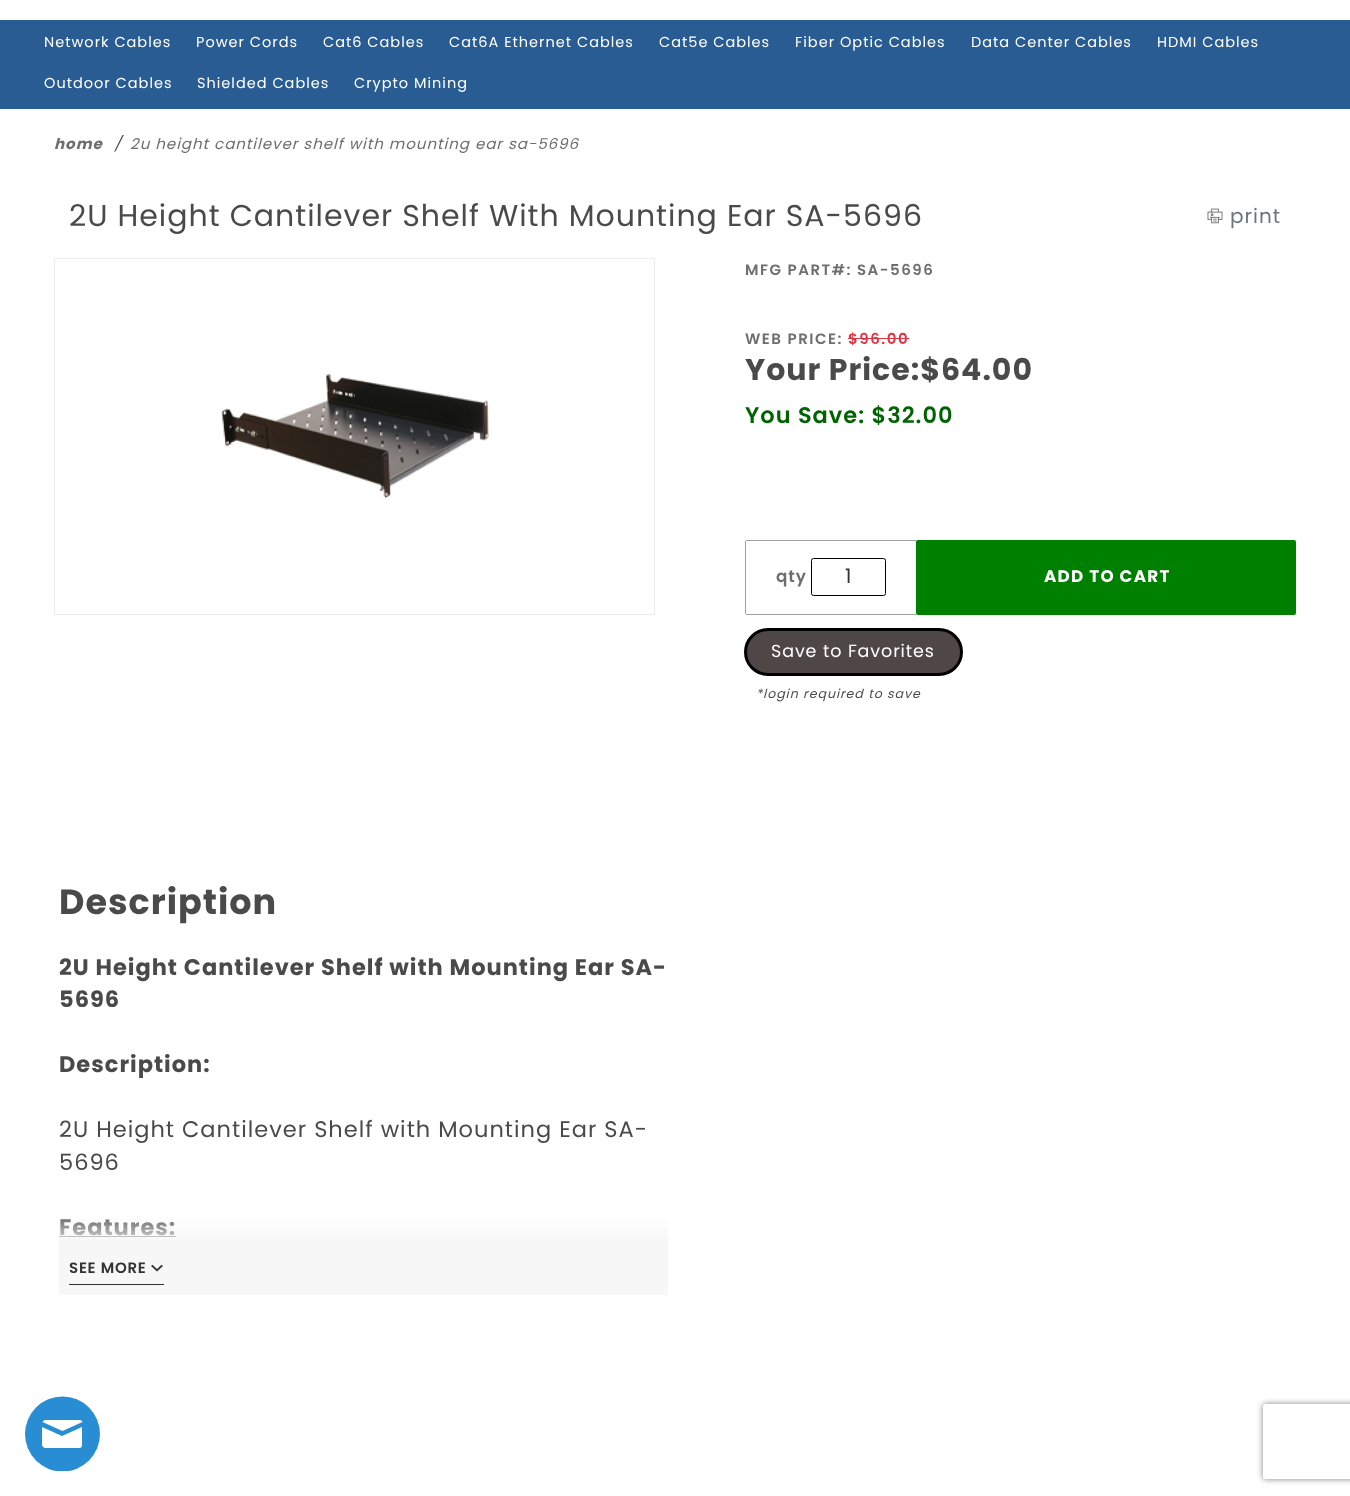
(async () => {
  const canvas = document.querySelector("canvas");
  canvas.width = 1350;
  canvas.height = 1496;
  const ctx = canvas.getContext("2d");
  ctx.miterLimit = 4;
  ctx.fontKerning = "normal";
  async function loadImage(src) {
    const img = new Image();
    img.src = src;
    await img.decode();
    return img;
  }
  let gradient, path;

  ctx.fillStyle = "#ffffff";
  ctx.fillRect(0, 0, 1350, 1496);
  ctx.fillStyle = "#285c92";
  ctx.fillRect(0, 20, 1350, 89);
  ctx.drawImage(await loadImage("img/1.png"), 1207, 208, 16, 16);
  ctx.strokeStyle = "#ededed";
  ctx.strokeRect(54.5, 258.5, 600, 356);
  ctx.drawImage(await loadImage("img/2.png"), 221, 373, 268, 126);
  for (const [x, y, w, h, color] of [
    [848, 338, 61, 1, "#dc3545"],
    [746, 540, 170, 1, "#a1a1a1"],
    [746, 614, 170, 1, "#a1a1a1"],
    [745, 541, 1, 73, "#a1a1a1"],
  ]) {
    ctx.fillStyle = color;
    ctx.fillRect(x, y, w, h);
  }
  ctx.beginPath();
  ctx.roundRect(811.5, 558.5, 74, 37, 2);
  ctx.strokeStyle = "#000000";
  ctx.stroke();
  ctx.fillStyle = "#008000";
  ctx.beginPath();
  ctx.roundRect(916, 540, 380, 75, 2);
  ctx.fill();
  ctx.fillStyle = "#4f4646";
  ctx.beginPath();
  ctx.roundRect(745.5, 629.5, 216, 45, 22.5);
  ctx.fill();
  ctx.lineWidth = 3;
  ctx.stroke();
  ctx.fillStyle = "#4a4a4a";
  ctx.fillRect(59, 1236, 117, 1);
  ctx.save();
  ctx.beginPath();
  ctx.rect(25, 1396, 75, 75);
  ctx.clip();
  ctx.fillStyle = "#298dd3";
  ctx.beginPath();
  ctx.arc(62.5, 1434, 37.5, 0, Math.PI * 2);
  ctx.fill();
  ctx.restore();
  ctx.fillStyle = "#ffffff";
  path = new Path2D("M42.5 1422L62.5 1431L82.5 1422C82 1421 81 1420 80 1420H45C44 1420 43 1421 42.5 1422Z");
  ctx.fill(path);
  path = new Path2D("M82 1427L62 1436L42 1427V1445C42 1446 44 1448 45 1448H80C81 1448 82 1446 82 1445Z");
  ctx.fill(path);
  ctx.save();
  path = new Path2D("M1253 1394H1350V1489H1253ZM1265.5 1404H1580.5C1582 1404 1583 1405 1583 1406.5V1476.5C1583 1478 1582 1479 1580.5 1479H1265.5C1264 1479 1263 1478 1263 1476.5V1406.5C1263 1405 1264 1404 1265.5 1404Z");
  ctx.clip(path, "evenodd");
  ctx.fillStyle = "#808080";
  ctx.filter = "blur(3px)";
  ctx.beginPath();
  ctx.roundRect(1263, 1404, 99, 75, 2.5);
  ctx.fill();
  ctx.filter = "none";
  ctx.restore();
  ctx.letterSpacing = "1px";
  ctx.font = "14.5px Poppins";
  for (const [text, x, y] of [
    ["Network Cables", 44, 47],
    ["Power Cords", 196, 47],
    ["Cat6 Cables", 323, 47],
    ["Cat6A Ethernet Cables", 449, 47],
    ["Cat5e Cables", 659, 47],
    ["Fiber Optic Cables", 795, 47],
    ["Data Center Cables", 971, 47],
    ["HDMI Cables", 1157, 47],
    ["Outdoor Cables", 44, 88],
    ["Shielded Cables", 197, 88],
    ["Crypto Mining", 354, 88],
  ]) {
    ctx.fillText(text, x, y);
  }
  ctx.font = "italic bold 15px Poppins";
  ctx.fillStyle = "#6e6e6e";
  ctx.fillText("home", 54, 149);
  ctx.font = "italic 15px Poppins";
  ctx.fillStyle = "#4a4a4a";
  ctx.fillText("/", 114, 149);
  ctx.fillStyle = "#6e6e6e";
  ctx.fillText("2u height cantilever shelf with mounting ear sa-5696", 130, 149);
  ctx.font = "30px Poppins";
  ctx.fillStyle = "#4a4a4a";
  ctx.fillText("2U Height Cantilever Shelf With Mounting Ear SA-5696", 69, 226);
  ctx.font = "20px Poppins";
  ctx.fillStyle = "#6c757d";
  ctx.fillText("print", 1230, 223);
  ctx.letterSpacing = "1.5px";
  ctx.font = "600 15px Poppins";
  ctx.fillStyle = "#6e6e6e";
  ctx.fillText("MFG PART#: SA-5696", 745, 275);
  ctx.fillText("WEB PRICE:", 745, 344);
  ctx.fillStyle = "#dc3545";
  ctx.fillText("$96.00", 848, 344);
  ctx.letterSpacing = "1px";
  ctx.font = "bold 30px Poppins";
  ctx.fillStyle = "#4a4a4a";
  ctx.fillText("Your Price:$64.00", 745, 380);
  ctx.font = "600 22.5px Poppins";
  ctx.fillStyle = "#006400";
  ctx.fillText("You Save: $32.00", 745, 423);
  ctx.font = "600 16.75px Poppins";
  ctx.fillStyle = "#6e6e6e";
  ctx.fillText("qty", 776, 582);
  ctx.font = "20px Poppins";
  ctx.fillStyle = "#333333";
  ctx.fillText("1", 845, 583);
  ctx.letterSpacing = "1.25px";
  ctx.font = "bold 16.75px Poppins";
  ctx.fillStyle = "#ffffff";
  ctx.fillText("ADD TO CART", 1044, 582);
  ctx.letterSpacing = "0.9px";
  ctx.font = "17.5px Poppins";
  ctx.fillText("Save to Favorites", 771, 657);
  ctx.letterSpacing = "1px";
  ctx.font = "italic 12.5px Poppins";
  ctx.fillStyle = "#4a4a4a";
  ctx.fillText("*login required to save", 756, 698);
  ctx.font = "bold 35px Poppins";
  ctx.fillText("Description", 59, 914);
  ctx.font = "bold 22.5px Poppins";
  for (const [text, x, y] of [
    ["2U Height Cantilever Shelf with Mounting Ear SA-", 59, 975],
    ["5696", 59, 1007],
    ["Description:", 59, 1072],
  ]) {
    ctx.fillText(text, x, y);
  }
  ctx.font = "22.5px Poppins";
  ctx.fillText("2U Height Cantilever Shelf with Mounting Ear SA-", 59, 1137);
  ctx.fillText("5696", 59, 1170);
  ctx.font = "bold 22.5px Poppins";
  ctx.fillText("Features:", 59, 1235);
  gradient = ctx.createLinearGradient(363, 1210, 363, 1295);
  gradient.addColorStop(0, "rgba(247, 247, 247, 0)");
  gradient.addColorStop(0.32, "rgba(247, 247, 247, 0.7)");
  gradient.addColorStop(0.38, "#f7f7f7");
  gradient.addColorStop(1, "#f7f7f7");
  ctx.fillStyle = gradient;
  ctx.fillRect(59, 1219, 609, 76);
  ctx.fillStyle = "#333333";
  ctx.fillRect(69, 1284, 95, 1);
  ctx.letterSpacing = "0.75px";
  ctx.font = "600 15px Poppins";
  ctx.fillText("SEE MORE", 69, 1273);
  ctx.font = "12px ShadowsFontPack";
  ctx.fillText("1", 151, 1273);
})();
